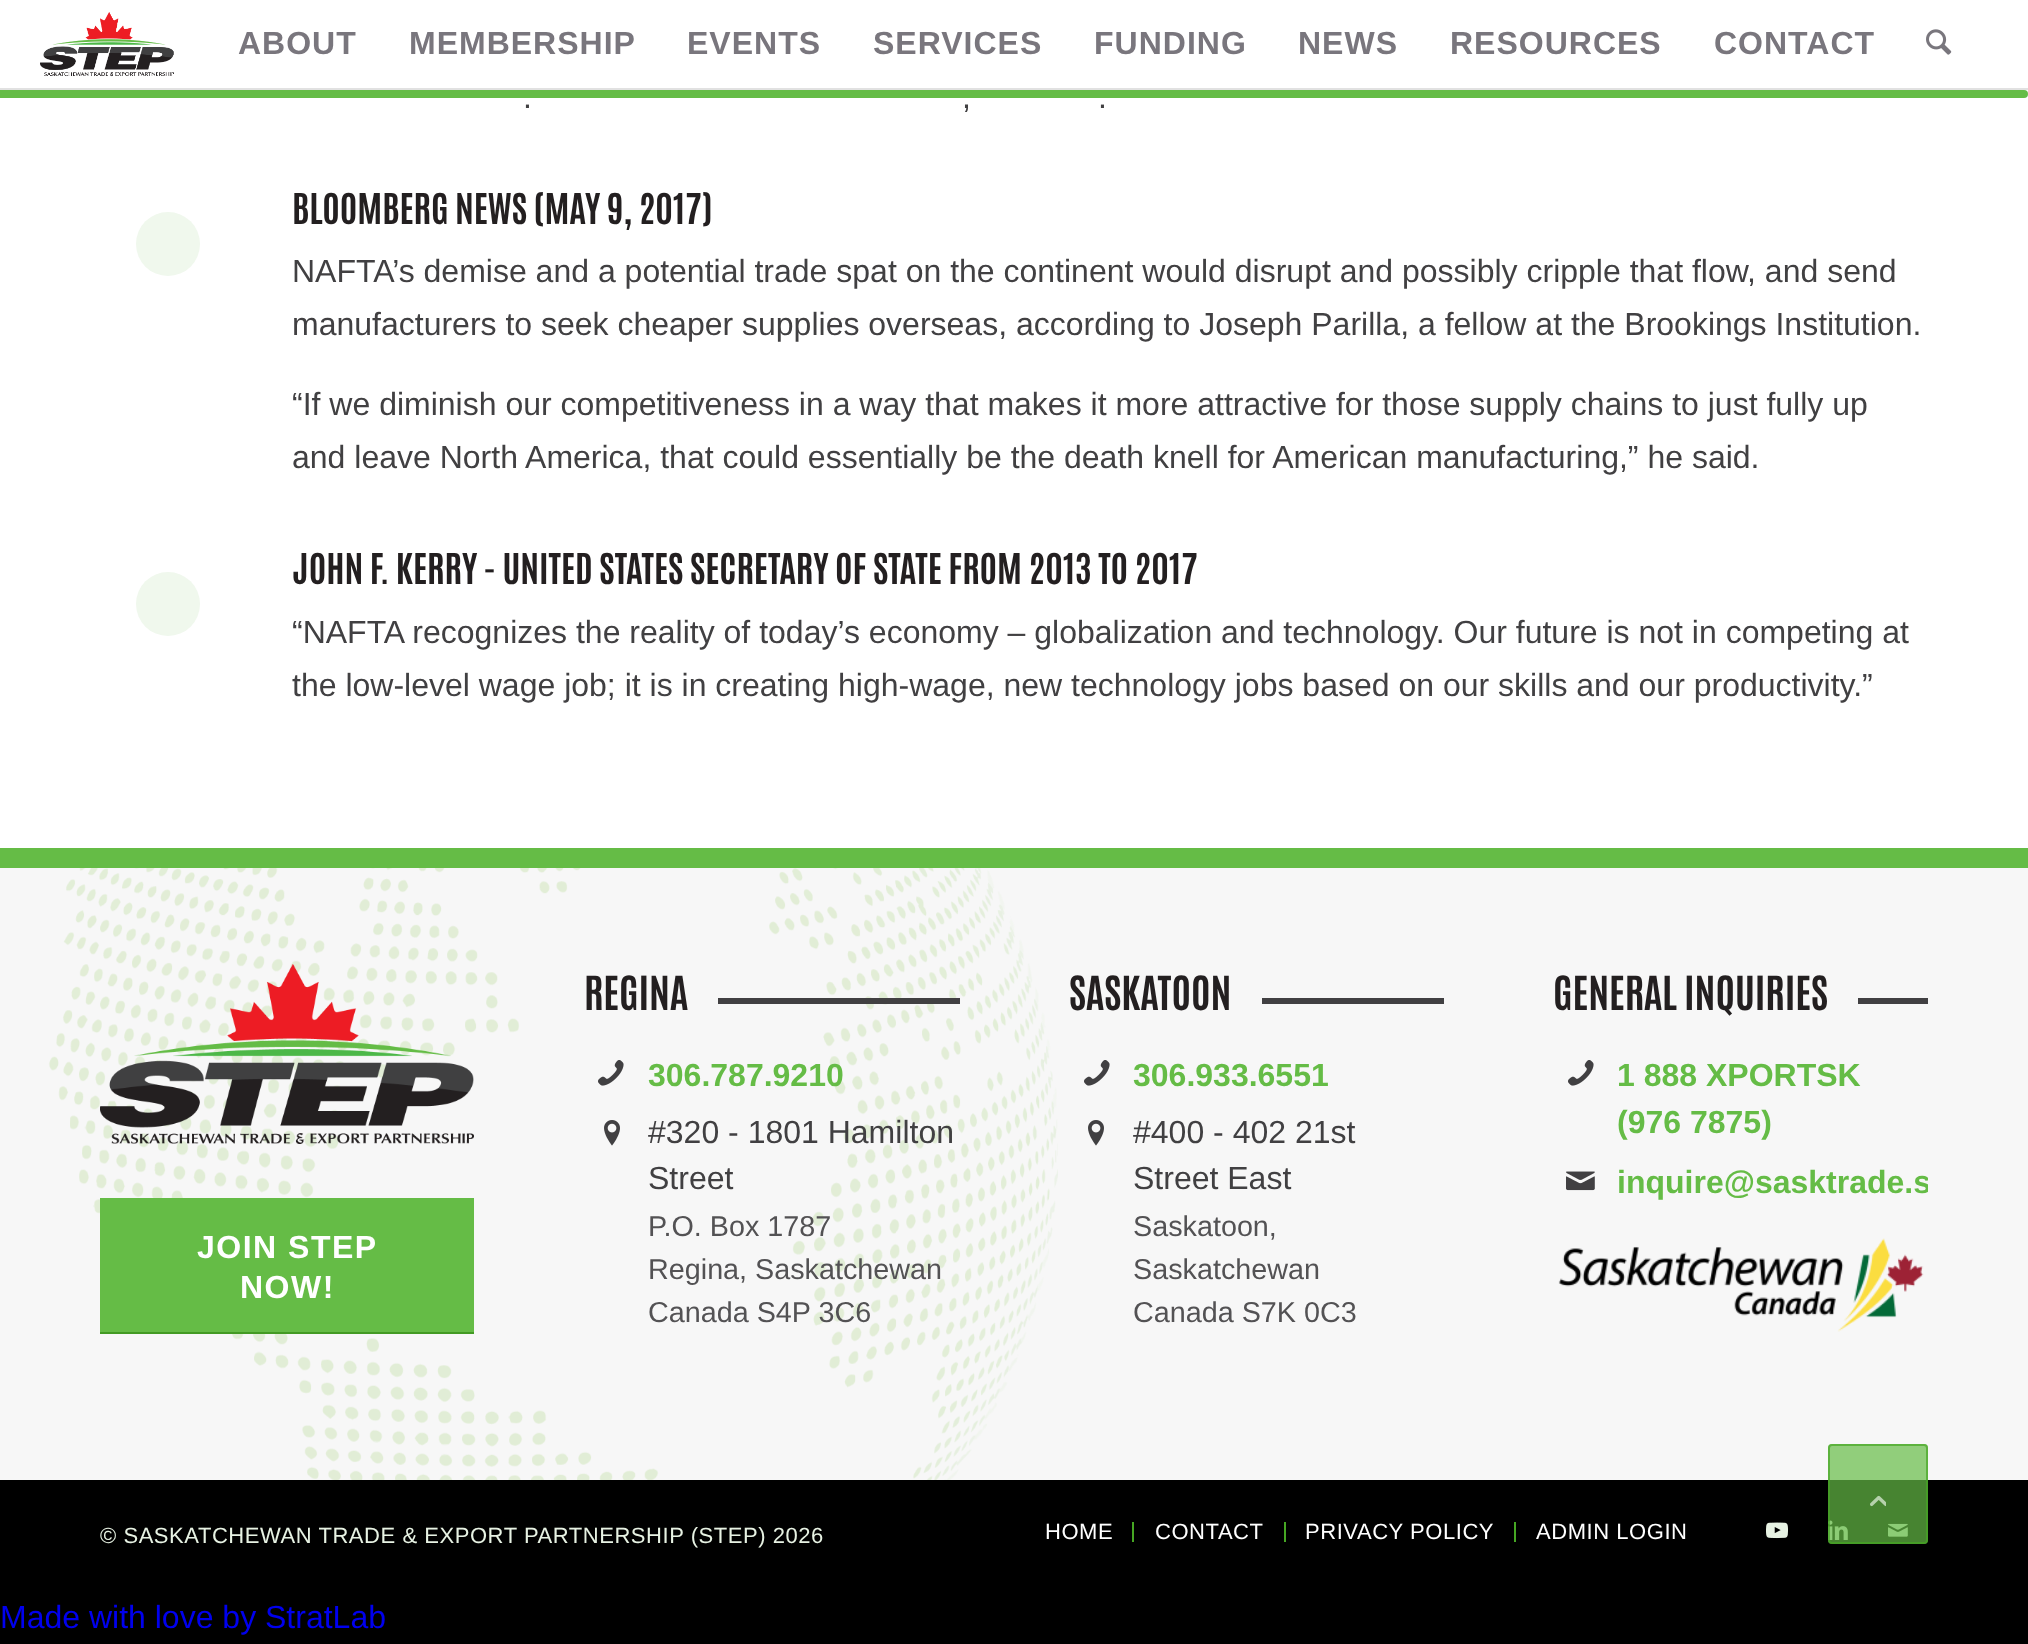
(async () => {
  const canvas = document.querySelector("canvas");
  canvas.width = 2028;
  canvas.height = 1644;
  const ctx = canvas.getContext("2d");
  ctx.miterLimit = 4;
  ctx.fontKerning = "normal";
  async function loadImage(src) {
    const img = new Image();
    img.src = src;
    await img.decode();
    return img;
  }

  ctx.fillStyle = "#000000";
  ctx.fillRect(0, 0, 2028, 1644);
  ctx.fillStyle = "#ffffff";
  ctx.fillRect(0, 0, 2028, 848);
  ctx.fillStyle = "#e1e1e1";
  ctx.fillRect(0, 88, 2028, 2);
  ctx.drawImage(await loadImage("img/1.png"), 40, 12, 134, 65);
  ctx.drawImage(await loadImage("img/2.png"), 1926, 29, 26, 26);
  ctx.fillStyle = "#65bc46";
  ctx.beginPath();
  ctx.roundRect(0, 90, 2028, 8, [0, 4, 4, 0]);
  ctx.fill();
  ctx.fillStyle = "#f0f8ed";
  ctx.beginPath();
  ctx.arc(168, 244, 32, 0, Math.PI * 2);
  ctx.fill();
  ctx.beginPath();
  ctx.arc(168, 604, 32, 0, Math.PI * 2);
  ctx.fill();
  ctx.fillStyle = "#65bc46";
  ctx.fillRect(0, 848, 2028, 20);
  ctx.fillStyle = "#f7f7f7";
  ctx.fillRect(0, 868, 2028, 612);
  ctx.drawImage(await loadImage("img/3.png"), 48, 868, 1010, 612);
  ctx.fillStyle = "#414042";
  ctx.fillRect(718, 998, 242, 6);
  ctx.drawImage(await loadImage("img/4.png"), 598, 1060, 26, 26);
  ctx.drawImage(await loadImage("img/5.png"), 604, 1120, 16, 26);
  ctx.fillRect(1262, 998, 182, 6);
  ctx.drawImage(await loadImage("img/4.png"), 1084, 1060, 26, 26);
  ctx.drawImage(await loadImage("img/5.png"), 1088, 1120, 16, 26);
  ctx.fillRect(1858, 998, 70, 6);
  ctx.drawImage(await loadImage("img/4.png"), 1568, 1060, 26, 26);
  ctx.drawImage(await loadImage("img/6.png"), 1566, 1171, 29, 20);
  ctx.drawImage(await loadImage("img/7.png"), 1558, 1238, 366, 94);
  ctx.drawImage(await loadImage("img/8.png"), 100, 964, 374, 180);
  for (const [x, y, w, h, color] of [
    [100, 1198, 374, 134, "#65bc46"],
    [100, 1332, 374, 2, "#439a24"],
    [1132, 1522, 2, 20, "#46a623"],
    [1284, 1522, 2, 20, "#46a623"],
    [1514, 1522, 2, 20, "#46a623"],
  ]) {
    ctx.fillStyle = color;
    ctx.fillRect(x, y, w, h);
  }
  ctx.drawImage(await loadImage("img/9.png"), 1766, 1522, 22, 17);
  ctx.drawImage(await loadImage("img/10.png"), 1828, 1520, 20, 20);
  ctx.drawImage(await loadImage("img/11.png"), 1888, 1523, 20, 14);
  ctx.fillStyle = "rgba(101, 188, 70, 0.7)";
  ctx.beginPath();
  ctx.roundRect(1828, 1444, 100, 100, 4);
  ctx.fill();
  ctx.beginPath();
  ctx.roundRect(1829, 1445, 98, 98, 3);
  ctx.strokeStyle = "rgba(70, 166, 35, 0.7)";
  ctx.lineWidth = 2;
  ctx.stroke();
  ctx.drawImage(await loadImage("img/12.png"), 1870, 1495, 16, 12);
  ctx.letterSpacing = "1px";
  ctx.font = "bold 32px Liberation Sans";
  ctx.fillStyle = "#79767d";
  for (const [text, x, y] of [
    ["ABOUT", 238, 54],
    ["MEMBERSHIP", 409, 54],
    ["EVENTS", 687, 54],
    ["SERVICES", 873, 54],
    ["FUNDING", 1094, 54],
    ["NEWS", 1298, 54],
    ["RESOURCES", 1450, 54],
    ["CONTACT", 1714, 54],
  ]) {
    ctx.fillText(text, x, y);
  }
  ctx.letterSpacing = "0px";
  ctx.font = "32px Liberation Sans";
  ctx.fillStyle = "#414042";
  for (const [text, x, y] of [
    [".", 523, 108],
    [",", 962, 108],
    [".", 1098, 108],
  ]) {
    ctx.fillText(text, x, y);
  }
  ctx.font = "bold 36px Antonio";
  ctx.fillStyle = "#231f20";
  ctx.fillText("BLOOMBERG NEWS (MAY 9, 2017)", 292, 224);
  ctx.font = "32px Liberation Sans";
  ctx.fillStyle = "#414042";
  for (const [text, x, y] of [
    ["NAFTA’s demise and a potential trade spat on the continent would disrupt and possibly cripple that flow, and send", 292, 282],
    ["manufacturers to seek cheaper supplies overseas, according to Joseph Parilla, a fellow at the Brookings Institution.", 292, 335],
    ["“If we diminish our competitiveness in a way that makes it more attractive for those supply chains to just fully up", 292, 415],
    ["and leave North America, that could essentially be the death knell for American manufacturing,” he said.", 292, 468],
  ]) {
    ctx.fillText(text, x, y);
  }
  ctx.font = "bold 36px Antonio";
  ctx.fillStyle = "#231f20";
  ctx.fillText("JOHN F. KERRY - UNITED STATES SECRETARY OF STATE FROM 2013 TO 2017", 292, 584);
  ctx.font = "32px Liberation Sans";
  ctx.fillStyle = "#414042";
  ctx.fillText("“NAFTA recognizes the reality of today’s economy – globalization and technology. Our future is not in competing at", 292, 643);
  ctx.fillText("the low-level wage job; it is in creating high-wage, new technology jobs based on our skills and our productivity.”", 292, 696);
  ctx.font = "bold 40px Antonio";
  ctx.fillStyle = "#231f20";
  ctx.fillText("REGINA", 584, 1010);
  ctx.font = "bold 32px Liberation Sans";
  ctx.fillStyle = "#65bc46";
  ctx.fillText("306.787.9210", 648, 1086);
  ctx.font = "32px Liberation Sans";
  ctx.fillStyle = "#414042";
  ctx.fillText("#320 - 1801 Hamilton", 648, 1143);
  ctx.fillText("Street", 648, 1189);
  ctx.font = "28.75px Liberation Sans";
  ctx.fillStyle = "#535254";
  for (const [text, x, y] of [
    ["P.O. Box 1787", 648, 1236],
    ["Regina, Saskatchewan", 648, 1279],
    ["Canada S4P 3C6", 648, 1322],
  ]) {
    ctx.fillText(text, x, y);
  }
  ctx.font = "bold 40px Antonio";
  ctx.fillStyle = "#231f20";
  ctx.fillText("SASKATOON", 1069, 1010);
  ctx.font = "bold 32px Liberation Sans";
  ctx.fillStyle = "#65bc46";
  ctx.fillText("306.933.6551", 1133, 1086);
  ctx.font = "32px Liberation Sans";
  ctx.fillStyle = "#414042";
  ctx.fillText("#400 - 402 21st", 1133, 1143);
  ctx.fillText("Street East", 1133, 1189);
  ctx.font = "28.75px Liberation Sans";
  ctx.fillStyle = "#535254";
  for (const [text, x, y] of [
    ["Saskatoon,", 1133, 1236],
    ["Saskatchewan", 1133, 1279],
    ["Canada S7K 0C3", 1133, 1322],
  ]) {
    ctx.fillText(text, x, y);
  }
  ctx.font = "bold 40px Antonio";
  ctx.fillStyle = "#231f20";
  ctx.fillText("GENERAL INQUIRIES", 1553, 1010);
  ctx.font = "bold 32px Liberation Sans";
  ctx.fillStyle = "#65bc46";
  ctx.fillText("1 888 XPORTSK", 1617, 1086);
  ctx.fillText("(976 7875)", 1617, 1133);
  ctx.save();
  ctx.beginPath();
  ctx.rect(1554, 1156, 374, 54);
  ctx.clip();
  ctx.fillText("inquire@sasktrade.s", 1617, 1193);
  ctx.restore();
  ctx.letterSpacing = "1.5px";
  ctx.fillStyle = "#ffffff";
  ctx.fillText("JOIN STEP", 197, 1258);
  ctx.fillText("NOW!", 240, 1298);
  ctx.letterSpacing = "0.55px";
  ctx.font = "22px Liberation Sans";
  ctx.fillStyle = "#e7f2e3";
  ctx.fillText("© SASKATCHEWAN TRADE & EXPORT PARTNERSHIP (STEP) 2026", 100, 1543);
  ctx.fillStyle = "#ffffff";
  for (const [text, x, y] of [
    ["HOME", 1045, 1539],
    ["CONTACT", 1155, 1539],
    ["PRIVACY POLICY", 1305, 1539],
    ["ADMIN LOGIN", 1536, 1539],
  ]) {
    ctx.fillText(text, x, y);
  }
  ctx.letterSpacing = "0px";
  ctx.font = "32px Liberation Sans";
  ctx.fillStyle = "#0000ee";
  ctx.fillText("Made with love by StratLab", 0, 1628);
})();
